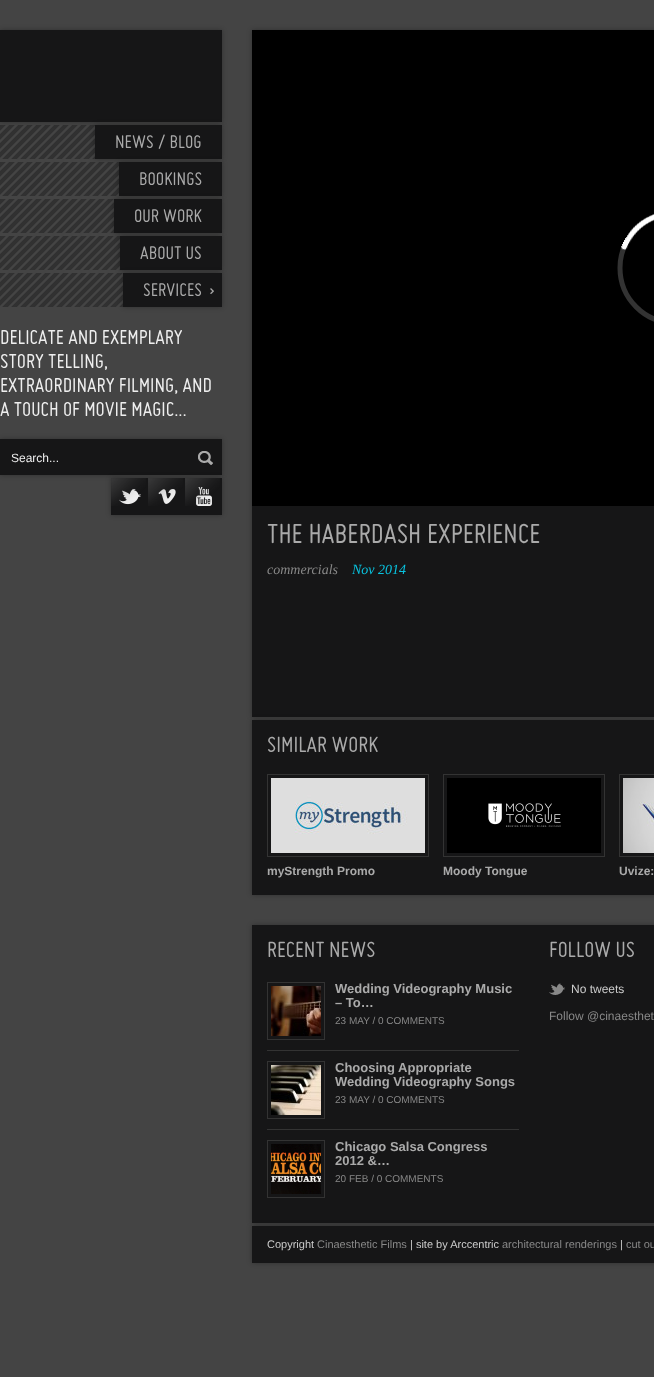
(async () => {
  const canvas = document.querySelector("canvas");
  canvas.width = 654;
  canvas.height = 1377;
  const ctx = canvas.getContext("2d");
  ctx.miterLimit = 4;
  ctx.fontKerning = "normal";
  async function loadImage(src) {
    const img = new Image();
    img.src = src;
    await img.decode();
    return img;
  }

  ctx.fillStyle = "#444444";
  ctx.fillRect(0, 0, 654, 1377);
  ctx.fillStyle = "rgba(0, 0, 0, 0.3)";
  ctx.filter = "blur(2.5px)";
  ctx.beginPath();
  ctx.rect(0, 30, 222, 92);
  ctx.fill();
  ctx.filter = "none";
  ctx.fillStyle = "#161617";
  ctx.fillRect(0, 30, 222, 92);
  ctx.drawImage(await loadImage("img/1.png"), 0, 125, 95, 34);
  ctx.fillStyle = "rgba(0, 0, 0, 0.3)";
  ctx.filter = "blur(2.5px)";
  ctx.beginPath();
  ctx.rect(95, 125, 127, 34);
  ctx.fill();
  ctx.filter = "none";
  ctx.fillStyle = "#161617";
  ctx.fillRect(95, 125, 127, 34);
  ctx.drawImage(await loadImage("img/2.png"), 0, 162, 119, 34);
  ctx.fillStyle = "rgba(0, 0, 0, 0.3)";
  ctx.filter = "blur(2.5px)";
  ctx.beginPath();
  ctx.rect(119, 162, 103, 34);
  ctx.fill();
  ctx.filter = "none";
  ctx.fillStyle = "#161617";
  ctx.fillRect(119, 162, 103, 34);
  ctx.drawImage(await loadImage("img/3.png"), 0, 199, 114, 34);
  ctx.fillStyle = "rgba(0, 0, 0, 0.3)";
  ctx.filter = "blur(2.5px)";
  ctx.beginPath();
  ctx.rect(114, 199, 108, 34);
  ctx.fill();
  ctx.filter = "none";
  ctx.fillStyle = "#161617";
  ctx.fillRect(114, 199, 108, 34);
  ctx.drawImage(await loadImage("img/4.png"), 0, 236, 120, 34);
  ctx.fillStyle = "rgba(0, 0, 0, 0.3)";
  ctx.filter = "blur(2.5px)";
  ctx.beginPath();
  ctx.rect(120, 236, 102, 34);
  ctx.fill();
  ctx.filter = "none";
  ctx.fillStyle = "#161617";
  ctx.fillRect(120, 236, 102, 34);
  ctx.drawImage(await loadImage("img/5.png"), 0, 273, 123, 34);
  ctx.fillStyle = "rgba(0, 0, 0, 0.3)";
  ctx.filter = "blur(2.5px)";
  ctx.beginPath();
  ctx.rect(123, 273, 99, 34);
  ctx.fill();
  ctx.filter = "none";
  ctx.fillStyle = "#161617";
  ctx.fillRect(123, 273, 99, 34);
  ctx.drawImage(await loadImage("img/6.png"), 210, 288, 4, 6);
  ctx.fillStyle = "rgba(0, 0, 0, 0.3)";
  ctx.filter = "blur(2.5px)";
  ctx.beginPath();
  ctx.rect(0, 439, 222, 36);
  ctx.fill();
  ctx.filter = "none";
  ctx.fillStyle = "#161617";
  ctx.fillRect(0, 439, 222, 36);
  ctx.drawImage(await loadImage("img/7.png"), 198, 451, 15, 14);
  ctx.fillStyle = "rgba(0, 0, 0, 0.3)";
  ctx.filter = "blur(2.5px)";
  ctx.beginPath();
  ctx.rect(111, 478, 111, 37);
  ctx.fill();
  ctx.filter = "none";
  ctx.fillStyle = "#161617";
  ctx.fillRect(111, 478, 111, 37);
  ctx.drawImage(await loadImage("img/8.png"), 119, 489, 22, 16);
  ctx.drawImage(await loadImage("img/9.png"), 111, 478, 35, 28);
  ctx.drawImage(await loadImage("img/10.png"), 158, 489, 18, 15);
  ctx.drawImage(await loadImage("img/11.png"), 148, 478, 35, 28);
  ctx.drawImage(await loadImage("img/12.png"), 196, 487, 16, 19);
  ctx.drawImage(await loadImage("img/13.png"), 185, 478, 35, 28);
  ctx.fillStyle = "rgba(0, 0, 0, 0.3)";
  ctx.filter = "blur(2.5px)";
  ctx.beginPath();
  ctx.rect(252, 30, 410, 687);
  ctx.fill();
  ctx.filter = "none";
  ctx.fillStyle = "#161617";
  ctx.fillRect(252, 506, 402, 211);
  ctx.drawImage(await loadImage("img/14.png"), 252, 30, 402, 476);
  ctx.fillStyle = "rgba(0, 0, 0, 0.3)";
  ctx.filter = "blur(2.5px)";
  ctx.beginPath();
  ctx.rect(252, 720, 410, 175);
  ctx.fill();
  ctx.filter = "none";
  ctx.fillStyle = "#161617";
  ctx.fillRect(252, 720, 402, 175);
  ctx.strokeStyle = "#333333";
  ctx.strokeRect(267.5, 774.5, 161, 82);
  ctx.drawImage(await loadImage("img/15.png"), 271, 778, 154, 75);
  ctx.strokeRect(443.5, 774.5, 161, 82);
  ctx.drawImage(await loadImage("img/16.png"), 447, 778, 154, 75);
  ctx.strokeRect(619.5, 774.5, 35, 82);
  ctx.drawImage(await loadImage("img/17.png"), 623, 778, 31, 75);
  ctx.fillStyle = "rgba(0, 0, 0, 0.3)";
  ctx.filter = "blur(2.5px)";
  ctx.beginPath();
  ctx.rect(252, 925, 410, 298);
  ctx.fill();
  ctx.filter = "none";
  ctx.fillStyle = "#161617";
  ctx.fillRect(252, 925, 402, 298);
  ctx.strokeRect(267.5, 982.5, 57, 57);
  ctx.drawImage(await loadImage("img/18.png"), 271, 986, 50, 50);
  ctx.fillStyle = "#333333";
  ctx.fillRect(267, 1050, 252, 1);
  ctx.strokeRect(267.5, 1061.5, 57, 57);
  ctx.drawImage(await loadImage("img/19.png"), 271, 1065, 50, 50);
  ctx.fillRect(267, 1129, 252, 1);
  ctx.strokeRect(267.5, 1140.5, 57, 57);
  ctx.drawImage(await loadImage("img/20.png"), 271, 1144, 50, 50);
  ctx.drawImage(await loadImage("img/21.png"), 549, 983, 16, 12);
  ctx.fillStyle = "rgba(0, 0, 0, 0.3)";
  ctx.filter = "blur(2.5px)";
  ctx.beginPath();
  ctx.rect(252, 1226, 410, 37);
  ctx.fill();
  ctx.filter = "none";
  ctx.fillStyle = "#161617";
  ctx.fillRect(252, 1226, 402, 37);
  ctx.font = "italic 20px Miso";
  ctx.fillStyle = "#aaaaaa";
  for (const [text, x, y] of [
    ["NEWS / BLOG", 115, 148],
    ["BOOKINGS", 139, 185],
    ["OUR WORK", 134, 222],
    ["ABOUT US", 140, 259],
    ["SERVICES", 143, 296],
  ]) {
    ctx.fillText(text, x, y);
  }
  ctx.font = "italic 22px Miso";
  ctx.fillStyle = "#eeeeee";
  for (const [text, x, y] of [
    ["DELICATE AND EXEMPLARY", 0, 344],
    ["STORY TELLING,", 0, 368],
    ["EXTRAORDINARY FILMING, AND", 0, 392],
    ["A TOUCH OF MOVIE MAGIC...", 0, 416],
  ]) {
    ctx.fillText(text, x, y);
  }
  ctx.font = "12px Liberation Sans";
  ctx.fillText("Search...", 11, 462);
  ctx.font = "italic 30px Miso";
  ctx.fillStyle = "#aaaaaa";
  ctx.fillText("THE HABERDASH EXPERIENCE", 267, 543);
  ctx.font = "italic 14px Liberation Serif";
  ctx.fillStyle = "#888888";
  ctx.fillText("commercials", 267, 574);
  ctx.fillStyle = "#09c2de";
  ctx.fillText("Nov 2014", 352, 574);
  ctx.font = "italic 24px Miso";
  ctx.fillStyle = "#aaaaaa";
  ctx.fillText("SIMILAR WORK", 267, 752);
  ctx.font = "bold 12px Liberation Sans";
  for (const [text, x, y] of [
    ["myStrength Promo", 267, 875],
    ["Moody Tongue", 443, 875],
    ["Uvize:", 619, 875],
  ]) {
    ctx.fillText(text, x, y);
  }
  ctx.font = "italic 24px Miso";
  ctx.fillText("RECENT NEWS", 267, 957);
  ctx.font = "bold 13px Liberation Sans";
  ctx.fillText("Wedding Videography Music", 335, 993);
  ctx.fillText("– To…", 335, 1007);
  ctx.font = "10px Liberation Sans";
  ctx.fillStyle = "#888888";
  ctx.fillText("23 MAY / 0 COMMENTS", 335, 1024);
  ctx.font = "bold 13px Liberation Sans";
  ctx.fillStyle = "#aaaaaa";
  ctx.fillText("Choosing Appropriate", 335, 1072);
  ctx.fillText("Wedding Videography Songs", 335, 1086);
  ctx.font = "10px Liberation Sans";
  ctx.fillStyle = "#888888";
  ctx.fillText("23 MAY / 0 COMMENTS", 335, 1103);
  ctx.font = "bold 13px Liberation Sans";
  ctx.fillStyle = "#aaaaaa";
  ctx.fillText("Chicago Salsa Congress", 335, 1151);
  ctx.fillText("2012 &…", 335, 1165);
  ctx.font = "10px Liberation Sans";
  ctx.fillStyle = "#888888";
  ctx.fillText("20 FEB / 0 COMMENTS", 335, 1182);
  ctx.font = "italic 24px Miso";
  ctx.fillStyle = "#aaaaaa";
  ctx.fillText("FOLLOW US", 549, 957);
  ctx.font = "12px Liberation Sans";
  ctx.fillStyle = "#cccccc";
  ctx.fillText("No tweets", 571, 993);
  ctx.fillStyle = "#888888";
  ctx.fillText("Follow @cinaesthet", 549, 1020);
  ctx.font = "11px Liberation Sans";
  ctx.fillStyle = "#cccccc";
  ctx.fillText("Copyright", 267, 1248);
  ctx.fillStyle = "#888888";
  ctx.fillText("Cinaesthetic Films", 317, 1248);
  ctx.fillStyle = "#cccccc";
  ctx.fillText("| site by Arccentric", 410, 1248);
  ctx.fillStyle = "#888888";
  ctx.fillText("architectural renderings", 502, 1248);
  ctx.fillStyle = "#cccccc";
  ctx.fillText("|", 620, 1248);
  ctx.fillStyle = "#888888";
  ctx.fillText("cut ou", 626, 1248);
})();
